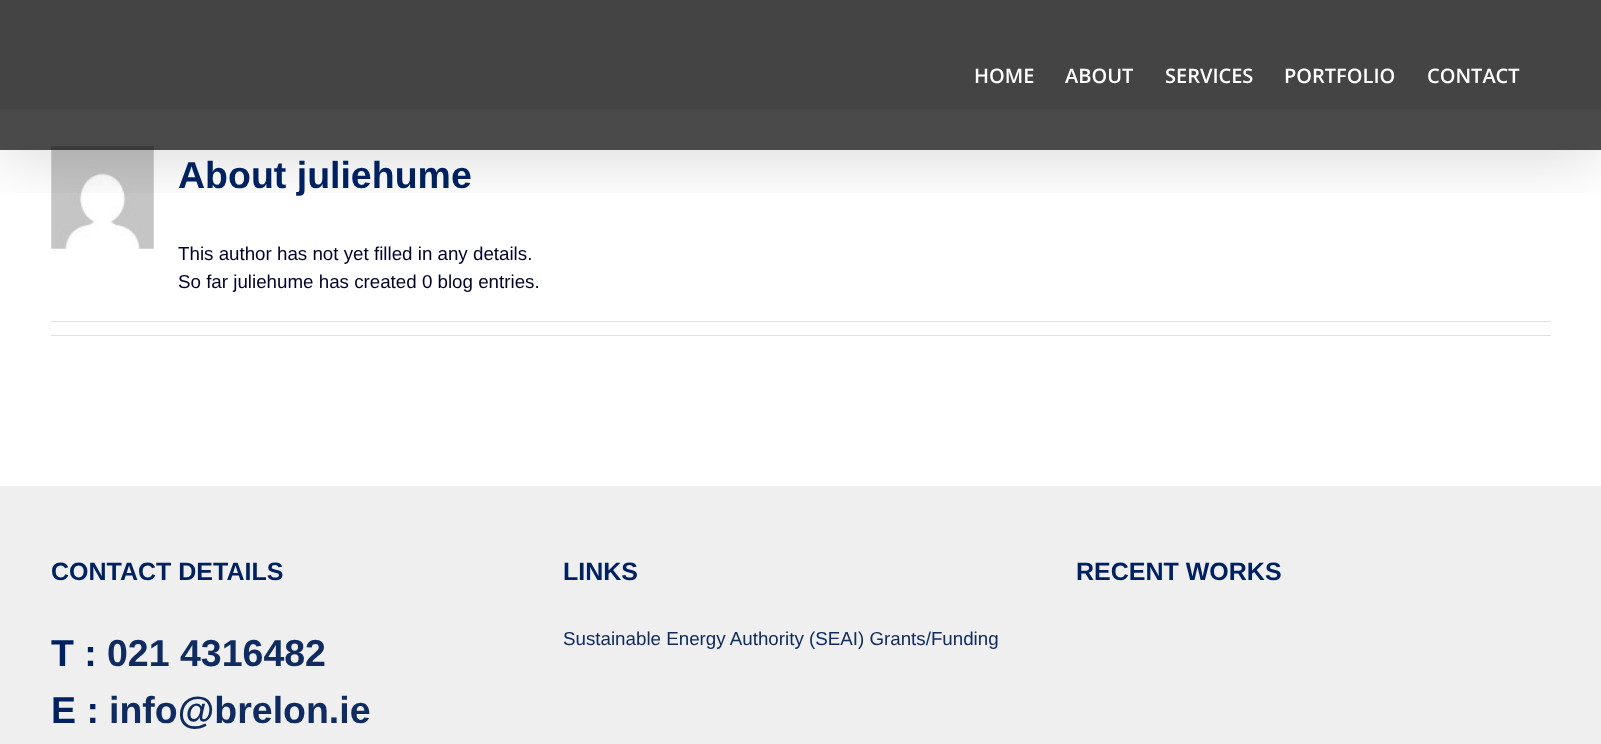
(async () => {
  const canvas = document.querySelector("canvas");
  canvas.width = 1601;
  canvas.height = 744;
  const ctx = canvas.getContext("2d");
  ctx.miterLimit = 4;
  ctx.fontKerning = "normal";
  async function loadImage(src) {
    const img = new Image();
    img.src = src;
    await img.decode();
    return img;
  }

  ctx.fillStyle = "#ffffff";
  ctx.fillRect(0, 0, 1601, 744);
  ctx.fillStyle = "#e9eaee";
  ctx.fillRect(0, 0, 1601, 109);
  ctx.drawImage(await loadImage("img/1.png"), 51, 146, 103, 103);
  ctx.save();
  ctx.beginPath();
  ctx.rect(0, 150, 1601, 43);
  ctx.clip();
  ctx.fillStyle = "rgba(0, 0, 0, 0.14)";
  ctx.filter = "blur(31px)";
  ctx.beginPath();
  ctx.rect(3, 15, 1596, 145);
  ctx.fill();
  ctx.filter = "none";
  ctx.restore();
  for (const [x, y, w, h, color] of [
    [0, 0, 1601, 150, "rgba(0, 0, 0, 0.71)"],
    [51, 321, 1500, 1, "#e0dede"],
    [51, 335, 1500, 1, "#e0dede"],
    [0, 486, 1601, 258, "#efefef"],
  ]) {
    ctx.fillStyle = color;
    ctx.fillRect(x, y, w, h);
  }
  ctx.font = "600 20px Open Sans";
  ctx.fillStyle = "#ffffff";
  for (const [text, x, y] of [
    ["HOME", 974, 83],
    ["ABOUT", 1065, 83],
    ["SERVICES", 1165, 83],
    ["PORTFOLIO", 1284, 83],
    ["CONTACT", 1427, 83],
  ]) {
    ctx.fillText(text, x, y);
  }
  ctx.font = "bold 37.5px Liberation Sans";
  ctx.fillStyle = "#002160";
  ctx.fillText("About juliehume", 178, 188);
  ctx.font = "18.75px Liberation Sans";
  ctx.fillStyle = "#00002d";
  ctx.fillText("This author has not yet filled in any details.", 178, 260);
  ctx.fillText("So far juliehume has created 0 blog entries.", 178, 288);
  ctx.font = "bold 25px Liberation Sans";
  ctx.fillStyle = "#002160";
  ctx.fillText("CONTACT DETAILS", 51, 580);
  ctx.font = "bold 37.5px Liberation Sans";
  ctx.fillText("T :", 51, 666);
  ctx.fillStyle = "#0f2b60";
  ctx.fillText("021 4316482", 107, 666);
  ctx.fillStyle = "#002160";
  ctx.fillText("E :", 51, 723);
  ctx.fillStyle = "#0f2b60";
  ctx.fillText("info@brelon.ie", 109, 723);
  ctx.font = "bold 25px Liberation Sans";
  ctx.fillStyle = "#002160";
  ctx.fillText("LINKS", 563, 580);
  ctx.font = "18.75px Liberation Sans";
  ctx.fillStyle = "#0f2b60";
  ctx.fillText("Sustainable Energy Authority (SEAI) Grants/Funding", 563, 645);
  ctx.font = "bold 25px Liberation Sans";
  ctx.fillStyle = "#002160";
  ctx.fillText("RECENT WORKS", 1076, 580);
})();
